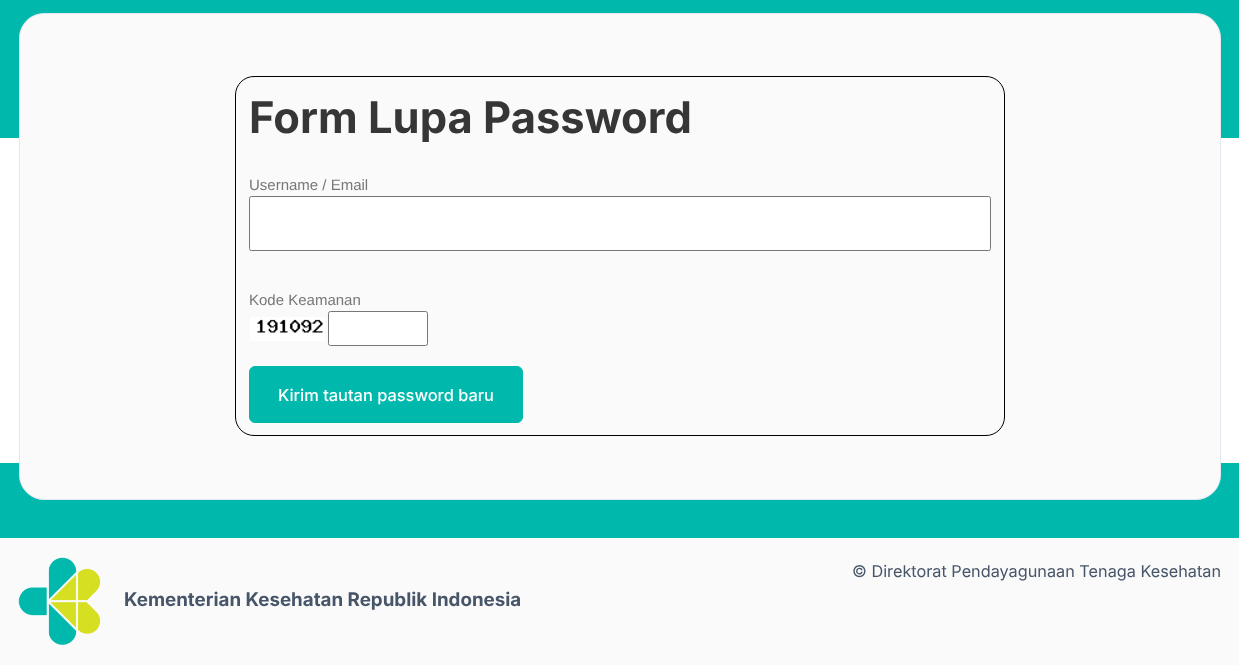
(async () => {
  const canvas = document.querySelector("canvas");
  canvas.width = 1239;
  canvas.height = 669;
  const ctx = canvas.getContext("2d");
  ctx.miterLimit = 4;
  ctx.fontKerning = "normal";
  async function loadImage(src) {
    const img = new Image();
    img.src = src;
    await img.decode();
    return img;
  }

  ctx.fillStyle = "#ffffff";
  ctx.fillRect(0, 0, 1239, 669);
  ctx.fillStyle = "#00b9ac";
  ctx.fillRect(0, 0, 1239, 138);
  ctx.fillRect(0, 463, 1239, 75);
  ctx.fillStyle = "#fafafa";
  ctx.beginPath();
  ctx.roundRect(19.5, 13.5, 1201, 486, 24.5);
  ctx.fill();
  ctx.strokeStyle = "#e2e8f0";
  ctx.stroke();
  ctx.beginPath();
  ctx.roundRect(235.5, 76.5, 769, 359, 18.5);
  ctx.strokeStyle = "#000000";
  ctx.stroke();
  ctx.fillStyle = "#ffffff";
  ctx.beginPath();
  ctx.roundRect(250, 198, 740, 52, 1);
  ctx.fill();
  ctx.beginPath();
  ctx.roundRect(249.5, 196.5, 741, 54, 2);
  ctx.strokeStyle = "#777777";
  ctx.stroke();
  ctx.drawImage(await loadImage("img/1.png"), 250, 317, 75, 24);
  ctx.beginPath();
  ctx.roundRect(328.5, 311.5, 99, 34, 2);
  ctx.fill();
  ctx.stroke();
  ctx.fillStyle = "#00b9ac";
  ctx.beginPath();
  ctx.roundRect(249.5, 366.5, 273, 56, 5.5);
  ctx.fill();
  ctx.strokeStyle = "#00b9ac";
  ctx.stroke();
  ctx.fillStyle = "#fafafa";
  ctx.fillRect(0, 538, 1239, 127);
  ctx.drawImage(await loadImage("img/2.png"), 18, 557, 83, 88);
  ctx.font = "bold 43.5px Inter";
  ctx.fillStyle = "#363636";
  ctx.fillText("Form Lupa Password", 249, 133);
  ctx.font = "15px Liberation Sans";
  ctx.fillStyle = "#777777";
  ctx.fillText("Username / Email", 249, 190);
  ctx.fillText("Kode Keamanan", 249, 305);
  ctx.font = "500 16.4px Inter";
  ctx.fillStyle = "#ffffff";
  ctx.fillText("Kirim tautan password baru", 278, 401);
  ctx.font = "16.25px Inter";
  ctx.fillStyle = "#475569";
  ctx.fillText("© Direktorat Pendayagunaan Tenaga Kesehatan", 852, 577);
  ctx.font = "bold 18.75px Inter";
  ctx.fillText("Kementerian Kesehatan Republik Indonesia", 124, 606);
})();
